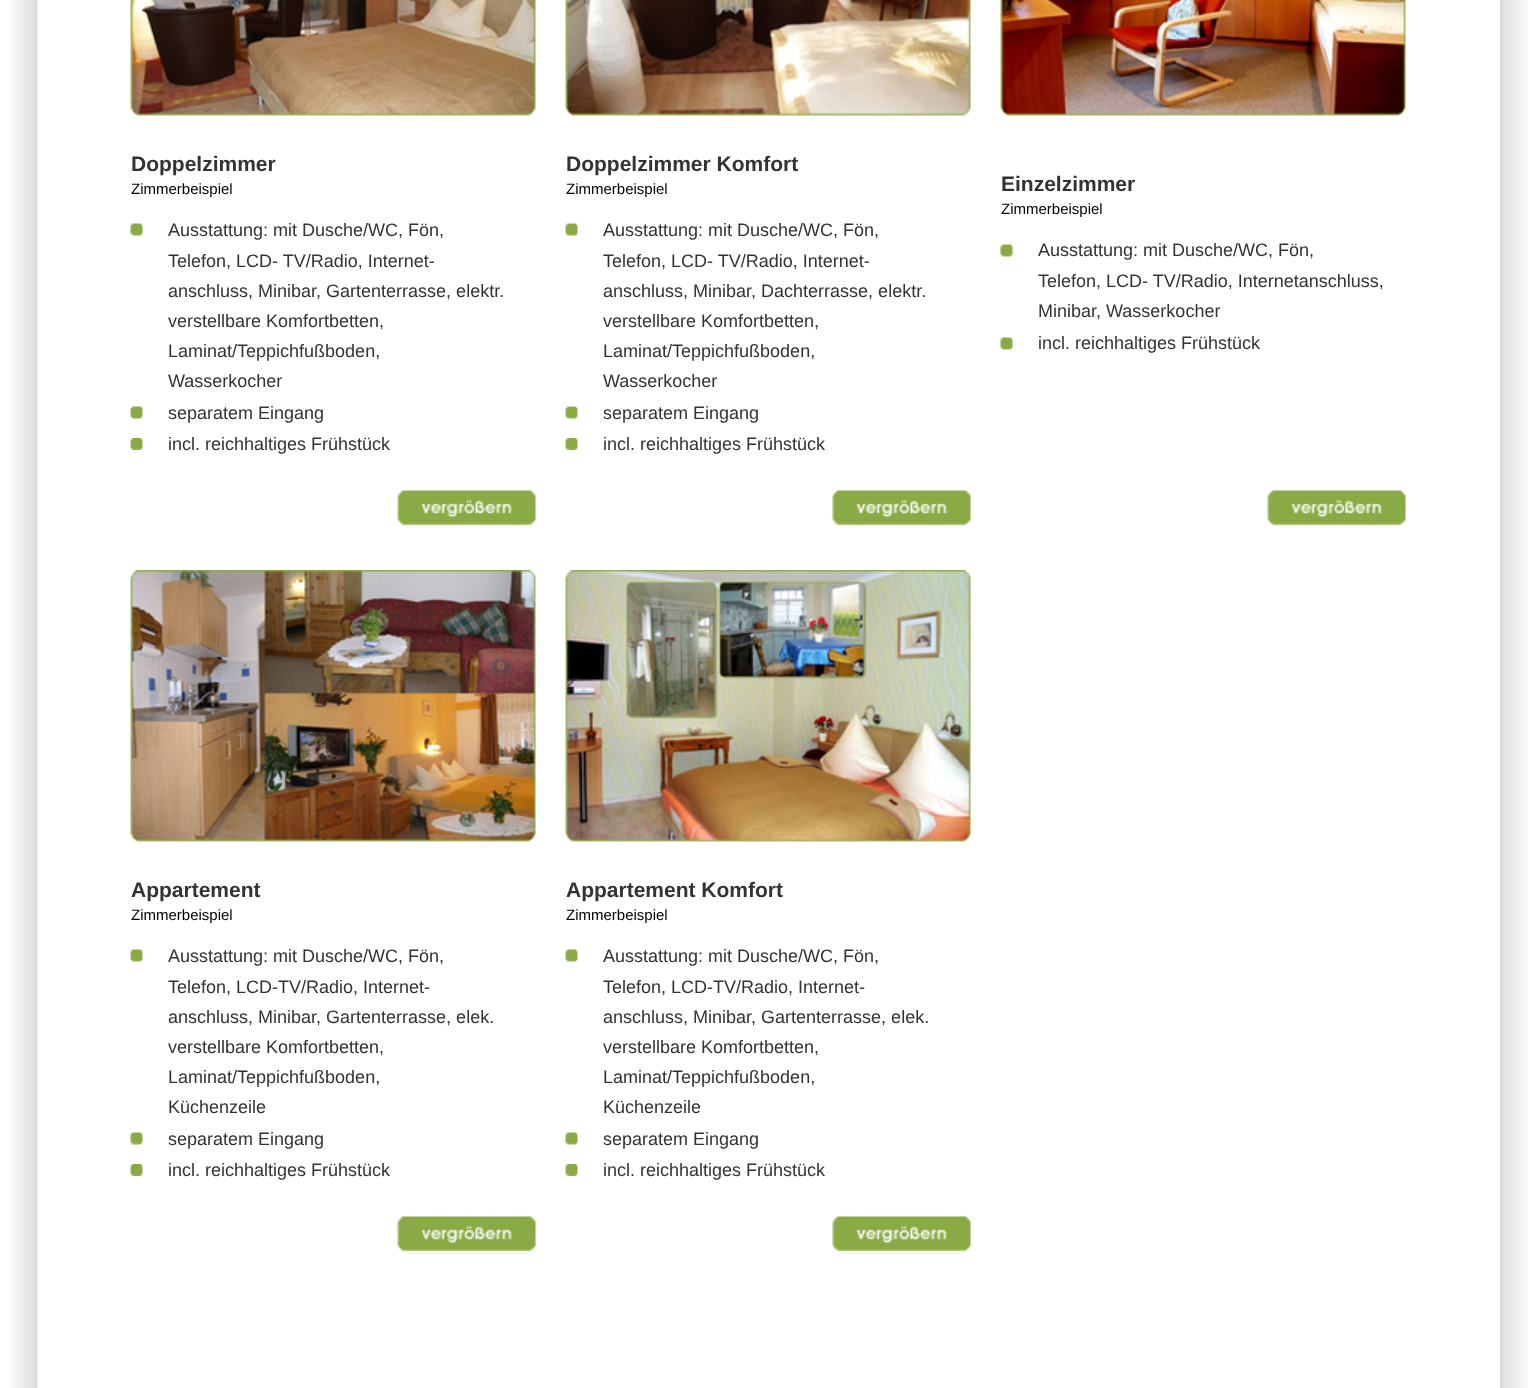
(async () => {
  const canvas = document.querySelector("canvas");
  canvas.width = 1536;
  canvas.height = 1388;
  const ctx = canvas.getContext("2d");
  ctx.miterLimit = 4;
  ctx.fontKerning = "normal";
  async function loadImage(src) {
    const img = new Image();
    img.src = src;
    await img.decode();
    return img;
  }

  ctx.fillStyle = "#ffffff";
  ctx.fillRect(0, 0, 1536, 1388);
  ctx.drawImage(await loadImage("img/1.png"), 9, 0, 29, 1388);
  ctx.drawImage(await loadImage("img/2.png"), 130, 0, 406, 116);
  ctx.drawImage(await loadImage("img/3.png"), 130, 223, 13, 13);
  ctx.drawImage(await loadImage("img/3.png"), 130, 406, 13, 13);
  ctx.drawImage(await loadImage("img/4.png"), 130, 438, 13, 12);
  ctx.drawImage(await loadImage("img/5.png"), 397, 490, 139, 35);
  ctx.drawImage(await loadImage("img/6.png"), 565, 0, 406, 116);
  ctx.drawImage(await loadImage("img/7.png"), 565, 223, 13, 13);
  ctx.drawImage(await loadImage("img/7.png"), 565, 406, 13, 13);
  ctx.drawImage(await loadImage("img/8.png"), 565, 438, 13, 12);
  ctx.drawImage(await loadImage("img/9.png"), 832, 490, 139, 35);
  ctx.drawImage(await loadImage("img/10.png"), 1000, 0, 406, 116);
  ctx.drawImage(await loadImage("img/3.png"), 1000, 244, 13, 13);
  ctx.drawImage(await loadImage("img/3.png"), 1000, 337, 13, 13);
  ctx.drawImage(await loadImage("img/11.png"), 1267, 490, 139, 35);
  ctx.drawImage(await loadImage("img/12.png"), 130, 570, 406, 272);
  ctx.drawImage(await loadImage("img/3.png"), 130, 949, 13, 13);
  ctx.drawImage(await loadImage("img/3.png"), 130, 1132, 13, 13);
  ctx.drawImage(await loadImage("img/4.png"), 130, 1164, 13, 12);
  ctx.drawImage(await loadImage("img/5.png"), 397, 1216, 139, 35);
  ctx.drawImage(await loadImage("img/13.png"), 565, 570, 406, 272);
  ctx.drawImage(await loadImage("img/7.png"), 565, 949, 13, 13);
  ctx.drawImage(await loadImage("img/7.png"), 565, 1132, 13, 13);
  ctx.drawImage(await loadImage("img/8.png"), 565, 1164, 13, 12);
  ctx.drawImage(await loadImage("img/9.png"), 832, 1216, 139, 35);
  ctx.drawImage(await loadImage("img/14.png"), 1500, 0, 28, 1388);
  ctx.font = "bold 21px Liberation Sans";
  ctx.fillStyle = "#333333";
  ctx.fillText("Doppelzimmer", 131, 171);
  ctx.font = "15px Liberation Sans";
  ctx.fillStyle = "#000000";
  ctx.fillText("Zimmerbeispiel", 131, 194);
  ctx.font = "18px Liberation Sans";
  ctx.fillStyle = "#333333";
  for (const [text, x, y] of [
    ["Ausstattung: mit Dusche/WC, Fön,", 168, 236],
    ["Telefon, LCD- TV/Radio, Internet-", 168, 267],
    ["anschluss, Minibar, Gartenterrasse, elektr.", 168, 297],
    ["verstellbare Komfortbetten,", 168, 327],
    ["Laminat/Teppichfußboden,", 168, 357],
    ["Wasserkocher", 168, 387],
    ["separatem Eingang", 168, 419],
    ["incl. reichhaltiges Frühstück", 168, 450],
  ]) {
    ctx.fillText(text, x, y);
  }
  ctx.font = "bold 21px Liberation Sans";
  ctx.fillText("Doppelzimmer Komfort", 566, 171);
  ctx.font = "15px Liberation Sans";
  ctx.fillStyle = "#000000";
  ctx.fillText("Zimmerbeispiel", 566, 194);
  ctx.font = "18px Liberation Sans";
  ctx.fillStyle = "#333333";
  for (const [text, x, y] of [
    ["Ausstattung: mit Dusche/WC, Fön,", 603, 236],
    ["Telefon, LCD- TV/Radio, Internet-", 603, 267],
    ["anschluss, Minibar, Dachterrasse, elektr.", 603, 297],
    ["verstellbare Komfortbetten,", 603, 327],
    ["Laminat/Teppichfußboden,", 603, 357],
    ["Wasserkocher", 603, 387],
    ["separatem Eingang", 603, 419],
    ["incl. reichhaltiges Frühstück", 603, 450],
  ]) {
    ctx.fillText(text, x, y);
  }
  ctx.font = "bold 21px Liberation Sans";
  ctx.fillText("Einzelzimmer", 1001, 191);
  ctx.font = "15px Liberation Sans";
  ctx.fillStyle = "#000000";
  ctx.fillText("Zimmerbeispiel", 1001, 214);
  ctx.font = "18px Liberation Sans";
  ctx.fillStyle = "#333333";
  for (const [text, x, y] of [
    ["Ausstattung: mit Dusche/WC, Fön,", 1038, 256],
    ["Telefon, LCD- TV/Radio, Internetanschluss,", 1038, 287],
    ["Minibar, Wasserkocher", 1038, 317],
    ["incl. reichhaltiges Frühstück", 1038, 349],
  ]) {
    ctx.fillText(text, x, y);
  }
  ctx.font = "bold 21px Liberation Sans";
  ctx.fillText("Appartement", 131, 897);
  ctx.font = "15px Liberation Sans";
  ctx.fillStyle = "#000000";
  ctx.fillText("Zimmerbeispiel", 131, 920);
  ctx.font = "18px Liberation Sans";
  ctx.fillStyle = "#333333";
  for (const [text, x, y] of [
    ["Ausstattung: mit Dusche/WC, Fön,", 168, 962],
    ["Telefon, LCD-TV/Radio, Internet-", 168, 993],
    ["anschluss, Minibar, Gartenterrasse, elek.", 168, 1023],
    ["verstellbare Komfortbetten,", 168, 1053],
    ["Laminat/Teppichfußboden,", 168, 1083],
    ["Küchenzeile", 168, 1113],
    ["separatem Eingang", 168, 1145],
    ["incl. reichhaltiges Frühstück", 168, 1176],
  ]) {
    ctx.fillText(text, x, y);
  }
  ctx.font = "bold 21px Liberation Sans";
  ctx.fillText("Appartement Komfort", 566, 897);
  ctx.font = "15px Liberation Sans";
  ctx.fillStyle = "#000000";
  ctx.fillText("Zimmerbeispiel", 566, 920);
  ctx.font = "18px Liberation Sans";
  ctx.fillStyle = "#333333";
  for (const [text, x, y] of [
    ["Ausstattung: mit Dusche/WC, Fön,", 603, 962],
    ["Telefon, LCD-TV/Radio, Internet-", 603, 993],
    ["anschluss, Minibar, Gartenterrasse, elek.", 603, 1023],
    ["verstellbare Komfortbetten,", 603, 1053],
    ["Laminat/Teppichfußboden,", 603, 1083],
    ["Küchenzeile", 603, 1113],
    ["separatem Eingang", 603, 1145],
    ["incl. reichhaltiges Frühstück", 603, 1176],
  ]) {
    ctx.fillText(text, x, y);
  }
})();
